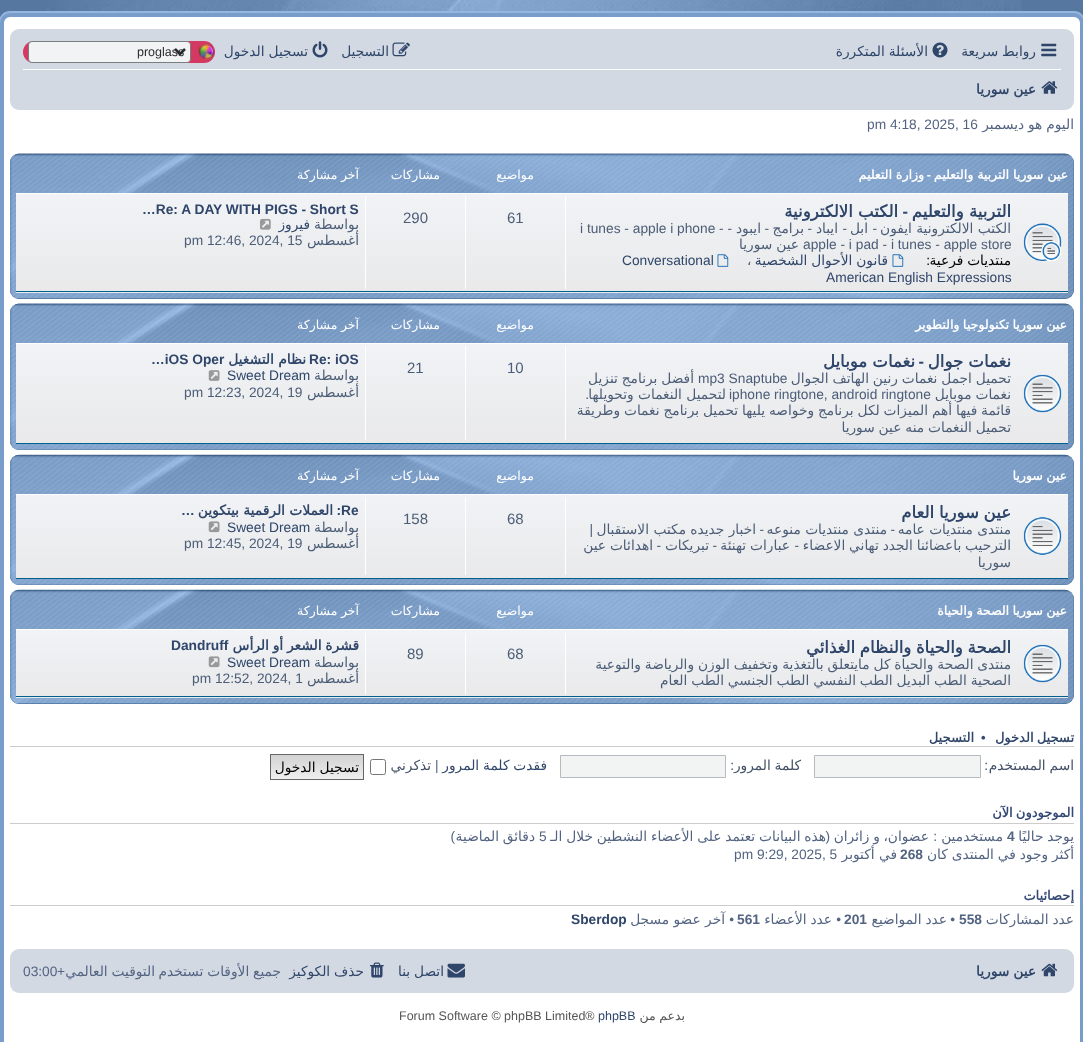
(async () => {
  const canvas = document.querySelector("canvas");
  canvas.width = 1083;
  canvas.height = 1042;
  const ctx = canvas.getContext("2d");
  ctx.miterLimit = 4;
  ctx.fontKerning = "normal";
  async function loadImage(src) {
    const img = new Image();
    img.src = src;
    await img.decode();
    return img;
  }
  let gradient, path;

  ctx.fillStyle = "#5677a0";
  ctx.fillRect(0, 0, 1083, 1042);
  ctx.drawImage(await loadImage("img/1.png"), 46, 0, 976, 13);
  ctx.fillStyle = "#95b6df";
  ctx.filter = "blur(0.5px)";
  ctx.beginPath();
  ctx.roundRect(-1, 11, 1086, 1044, 11);
  ctx.fill();
  ctx.filter = "none";
  ctx.fillStyle = "#ffffff";
  ctx.beginPath();
  ctx.roundRect(2, 15, 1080, 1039, 8);
  ctx.fill();
  ctx.strokeStyle = "#789dca";
  ctx.lineWidth = 4;
  ctx.stroke();
  ctx.fillStyle = "#d2d9e3";
  ctx.beginPath();
  ctx.roundRect(10, 29, 1064, 81, 9);
  ctx.fill();
  ctx.drawImage(await loadImage("img/2.png"), 1041, 43, 16, 14);
  ctx.drawImage(await loadImage("img/3.png"), 932, 42, 16, 16);
  ctx.drawImage(await loadImage("img/4.png"), 392, 42, 18, 15);
  ctx.drawImage(await loadImage("img/5.png"), 312, 41, 16, 17);
  ctx.fillStyle = "#d33961";
  ctx.beginPath();
  ctx.roundRect(23, 41, 192, 22, 11);
  ctx.fill();
  ctx.drawImage(await loadImage("img/6.png"), 198, 43, 17, 16);
  ctx.fillStyle = "#f2f3f5";
  ctx.beginPath();
  ctx.roundRect(28.5, 41.5, 162, 21, 3.5);
  ctx.fill();
  ctx.strokeStyle = "#7c7d7f";
  ctx.lineWidth = 1;
  ctx.stroke();
  path = new Path2D("M175 49L180 54L185 49");
  ctx.strokeStyle = "#2a2b2d";
  ctx.lineWidth = 2.5;
  ctx.stroke(path);
  ctx.fillStyle = "#ffffff";
  ctx.fillRect(23, 69, 1038, 1);
  ctx.drawImage(await loadImage("img/7.png"), 1041, 81, 17, 13);
  ctx.fillStyle = "#2d5a84";
  ctx.beginPath();
  ctx.roundRect(10, 154, 1064, 145, 9);
  ctx.fill();
  ctx.drawImage(await loadImage("img/8.png"), 9, 153, 1065, 146);
  gradient = ctx.createLinearGradient(542, 192, 542, 293);
  gradient.addColorStop(0, "#f1f3f6");
  gradient.addColorStop(1, "#e9e9ea");
  ctx.fillStyle = gradient;
  ctx.fillRect(16, 194, 1052, 99);
  ctx.fillStyle = "#ffffff";
  ctx.fillRect(16, 193, 1052, 1);
  ctx.fillStyle = "#00608f";
  ctx.fillRect(16, 291, 1052, 1);
  ctx.drawImage(await loadImage("img/9.png"), 1023, 223, 39, 38);
  ctx.drawImage(await loadImage("img/10.png"), 892, 254, 12, 13);
  ctx.drawImage(await loadImage("img/10.png"), 717, 254, 12, 13);
  for (const [x, y, w, h, color] of [
    [565, 196, 1, 93, "#ffffff"],
    [465, 196, 1, 93, "#ffffff"],
    [365, 196, 1, 93, "#ffffff"],
  ]) {
    ctx.fillStyle = color;
    ctx.fillRect(x, y, w, h);
  }
  ctx.drawImage(await loadImage("img/11.png"), 260, 218, 11, 12);
  ctx.fillStyle = "#2d5a84";
  ctx.beginPath();
  ctx.roundRect(10, 304, 1064, 146, 9);
  ctx.fill();
  ctx.drawImage(await loadImage("img/12.png"), 9, 303, 1065, 147);
  gradient = ctx.createLinearGradient(542, 342, 542, 444);
  gradient.addColorStop(0, "#f1f3f6");
  gradient.addColorStop(1, "#e9e9ea");
  ctx.fillStyle = gradient;
  ctx.fillRect(16, 344, 1052, 99);
  ctx.fillStyle = "#ffffff";
  ctx.fillRect(16, 343, 1052, 1);
  ctx.fillStyle = "#00608f";
  ctx.fillRect(16, 443, 1052, 1);
  ctx.drawImage(await loadImage("img/13.png"), 1023, 374, 39, 39);
  for (const [x, y, w, h, color] of [
    [565, 346, 1, 94, "#ffffff"],
    [465, 346, 1, 94, "#ffffff"],
    [365, 346, 1, 94, "#ffffff"],
  ]) {
    ctx.fillStyle = color;
    ctx.fillRect(x, y, w, h);
  }
  ctx.drawImage(await loadImage("img/14.png"), 208, 370, 12, 11);
  ctx.fillStyle = "#2d5a84";
  ctx.beginPath();
  ctx.roundRect(10, 455, 1064, 130, 9);
  ctx.fill();
  ctx.drawImage(await loadImage("img/15.png"), 9, 454, 1065, 131);
  gradient = ctx.createLinearGradient(542, 494, 542, 579);
  gradient.addColorStop(0, "#f1f3f6");
  gradient.addColorStop(1, "#e9e9ea");
  ctx.fillStyle = gradient;
  ctx.fillRect(16, 495, 1052, 83);
  ctx.fillStyle = "#ffffff";
  ctx.fillRect(16, 494, 1052, 1);
  ctx.fillStyle = "#00608f";
  ctx.fillRect(16, 578, 1052, 1);
  ctx.drawImage(await loadImage("img/16.png"), 1023, 517, 39, 38);
  for (const [x, y, w, h, color] of [
    [565, 498, 1, 77, "#ffffff"],
    [465, 498, 1, 77, "#ffffff"],
    [365, 498, 1, 77, "#ffffff"],
  ]) {
    ctx.fillStyle = color;
    ctx.fillRect(x, y, w, h);
  }
  ctx.drawImage(await loadImage("img/17.png"), 208, 521, 12, 12);
  ctx.fillStyle = "#2d5a84";
  ctx.beginPath();
  ctx.roundRect(10, 590, 1064, 114, 9);
  ctx.fill();
  ctx.drawImage(await loadImage("img/18.png"), 9, 589, 1065, 115);
  gradient = ctx.createLinearGradient(542, 629, 542, 698);
  gradient.addColorStop(0, "#f1f3f6");
  gradient.addColorStop(1, "#e9e9ea");
  ctx.fillStyle = gradient;
  ctx.fillRect(16, 630, 1052, 68);
  ctx.fillStyle = "#ffffff";
  ctx.fillRect(16, 629, 1052, 1);
  ctx.fillStyle = "#00608f";
  ctx.fillRect(16, 696, 1052, 1);
  ctx.drawImage(await loadImage("img/19.png"), 1023, 644, 39, 39);
  for (const [x, y, w, h, color] of [
    [565, 633, 1, 61, "#ffffff"],
    [465, 633, 1, 61, "#ffffff"],
    [365, 633, 1, 61, "#ffffff"],
  ]) {
    ctx.fillStyle = color;
    ctx.fillRect(x, y, w, h);
  }
  ctx.drawImage(await loadImage("img/20.png"), 208, 656, 12, 12);
  ctx.fillStyle = "#cccccc";
  ctx.fillRect(10, 746, 1064, 1);
  ctx.fillStyle = "#f2f3f3";
  ctx.beginPath();
  ctx.rect(814.5, 755.5, 166, 22);
  ctx.fill();
  ctx.strokeStyle = "#b4bac0";
  ctx.lineWidth = 1;
  ctx.stroke();
  ctx.beginPath();
  ctx.rect(560.5, 755.5, 165, 22);
  ctx.fill();
  ctx.stroke();
  ctx.beginPath();
  ctx.roundRect(370.5, 759.5, 15, 15, 2);
  ctx.strokeStyle = "#767676";
  ctx.stroke();
  gradient = ctx.createLinearGradient(317, 755, 317, 779);
  gradient.addColorStop(0, "#d2d2d2");
  gradient.addColorStop(1, "#efefef");
  ctx.fillStyle = gradient;
  ctx.fillRect(271, 755, 92, 24);
  ctx.strokeStyle = "#666666";
  ctx.strokeRect(270.5, 754.5, 93, 25);
  ctx.fillStyle = "#cccccc";
  ctx.fillRect(10, 823, 1064, 1);
  ctx.fillRect(10, 905, 1064, 1);
  ctx.fillStyle = "#d2d9e3";
  ctx.beginPath();
  ctx.roundRect(10, 949, 1064, 44, 9);
  ctx.fill();
  ctx.drawImage(await loadImage("img/21.png"), 1041, 963, 17, 14);
  ctx.drawImage(await loadImage("img/22.png"), 447, 963, 18, 15);
  ctx.drawImage(await loadImage("img/23.png"), 370, 962, 14, 16);
  ctx.wordSpacing = "-0.5px";
  ctx.direction = "rtl";
  ctx.font = "13.75px DejaVu Sans";
  ctx.fillStyle = "#2f466a";
  ctx.fillText("روابط سريعة", 1036, 56);
  ctx.fillText("الأسئلة المتكررة", 928, 56);
  ctx.wordSpacing = "0px";
  ctx.fillText("التسجيل", 389, 56);
  ctx.wordSpacing = "-0.5px";
  ctx.fillText("تسجيل الدخول", 308, 56);
  ctx.wordSpacing = "0px";
  ctx.direction = "ltr";
  ctx.font = "12.5px Liberation Sans";
  ctx.fillStyle = "#2a2b2d";
  ctx.fillText("proglass", 137, 56);
  ctx.wordSpacing = "-0.5px";
  ctx.direction = "rtl";
  ctx.font = "bold 13.75px DejaVu Sans";
  ctx.fillStyle = "#2f466a";
  ctx.fillText("عين سوريا", 1036, 94);
  ctx.font = "13.75px DejaVu Sans";
  ctx.fillStyle = "#536482";
  ctx.fillText("اليوم هو ديسمبر", 1074, 129);
  ctx.wordSpacing = "0px";
  ctx.direction = "ltr";
  ctx.font = "13.75px Liberation Sans";
  ctx.fillText("pm 4:18, 2025, 16", 867, 129);
  ctx.direction = "rtl";
  ctx.font = "bold 12.5px DejaVu Sans";
  ctx.fillStyle = "#ffffff";
  ctx.fillText("عين سوريا التربية والتعليم", 1068, 179);
  ctx.font = "bold 12.5px Liberation Sans";
  ctx.fillText("-", 931, 179);
  ctx.font = "bold 12.5px DejaVu Sans";
  ctx.fillText("وزارة التعليم", 924, 179);
  ctx.font = "12.5px DejaVu Sans";
  ctx.fillText("مواضيع", 534, 179);
  ctx.fillText("مشاركات", 440, 179);
  ctx.wordSpacing = "-0.5px";
  ctx.fillText("آخر مشاركة", 359, 179);
  ctx.wordSpacing = "0px";
  ctx.font = "bold 16.5px DejaVu Sans";
  ctx.fillStyle = "#2f466a";
  ctx.fillText("التربية والتعليم", 1011, 217);
  ctx.font = "bold 16.5px Liberation Sans";
  ctx.fillText("-", 908, 217);
  ctx.font = "bold 16.5px DejaVu Sans";
  ctx.fillText("الكتب الالكترونية", 898, 217);
  ctx.font = "13.75px DejaVu Sans";
  ctx.fillStyle = "#4c5d77";
  ctx.fillText("الكتب الالكترونية ايفون", 1011, 233);
  ctx.font = "13.75px Liberation Sans";
  ctx.fillText("-", 877, 233);
  ctx.font = "13.75px DejaVu Sans";
  ctx.fillText("ابل", 868, 233);
  ctx.font = "13.75px Liberation Sans";
  ctx.fillText("-", 847, 233);
  ctx.font = "13.75px DejaVu Sans";
  ctx.fillText("ايباد", 838, 233);
  ctx.font = "13.75px Liberation Sans";
  ctx.fillText("-", 812, 233);
  ctx.font = "13.75px DejaVu Sans";
  ctx.fillText("برامج", 804, 233);
  ctx.font = "13.75px Liberation Sans";
  ctx.fillText("-", 769, 233);
  ctx.font = "13.75px DejaVu Sans";
  ctx.fillText("ايبود", 761, 233);
  ctx.font = "13.75px Liberation Sans";
  ctx.fillText("-", 732, 233);
  ctx.direction = "ltr";
  ctx.fillText("i tunes - apple i phone -", 580, 233);
  ctx.fillText("apple - i pad - i tunes - apple store", 803, 249);
  ctx.wordSpacing = "-0.5px";
  ctx.direction = "rtl";
  ctx.font = "13.75px DejaVu Sans";
  ctx.fillText("عين سوريا", 799, 249);
  ctx.fillStyle = "#000000";
  ctx.fillText("منتديات فرعية", 1011, 265);
  ctx.fillStyle = "#2f466a";
  ctx.fillText("قانون الأحوال الشخصية", 888, 265);
  ctx.wordSpacing = "0px";
  ctx.direction = "ltr";
  ctx.font = "13.75px Liberation Sans";
  ctx.fillText("Conversational", 622, 265);
  ctx.fillText("American English Expressions", 826, 282);
  ctx.direction = "rtl";
  ctx.fillStyle = "#000000";
  ctx.fillText(":", 930, 265);
  ctx.direction = "ltr";
  ctx.font = "13.75px DejaVu Sans";
  ctx.fillStyle = "#4c5d77";
  ctx.fillText("،", 747, 265);
  ctx.font = "15px Liberation Sans";
  ctx.fillText("61", 507, 223);
  ctx.fillText("290", 403, 223);
  ctx.font = "bold 13.75px Liberation Sans";
  ctx.fillStyle = "#2f466a";
  ctx.fillText("…Re: A DAY WITH PIGS - Short S", 142, 214);
  ctx.direction = "rtl";
  ctx.font = "13.75px DejaVu Sans";
  ctx.fillStyle = "#4c5d77";
  ctx.fillText("بواسطة", 359, 229);
  ctx.fillStyle = "#2f466a";
  ctx.fillText("فيروز", 310, 229);
  ctx.fillStyle = "#4c5d77";
  ctx.fillText("أغسطس", 359, 245);
  ctx.direction = "ltr";
  ctx.font = "13.75px Liberation Sans";
  ctx.fillText("pm 12:46, 2024, 15", 184, 245);
  ctx.wordSpacing = "-0.5px";
  ctx.direction = "rtl";
  ctx.font = "bold 12.5px DejaVu Sans";
  ctx.fillStyle = "#ffffff";
  ctx.fillText("عين سوريا تكنولوجيا والتطوير", 1067, 329);
  ctx.wordSpacing = "0px";
  ctx.font = "12.5px DejaVu Sans";
  ctx.fillText("مواضيع", 534, 329);
  ctx.fillText("مشاركات", 440, 329);
  ctx.wordSpacing = "-0.5px";
  ctx.fillText("آخر مشاركة", 359, 329);
  ctx.wordSpacing = "0px";
  ctx.font = "bold 16.5px DejaVu Sans";
  ctx.fillStyle = "#2f466a";
  ctx.fillText("نغمات جوال", 1011, 367);
  ctx.font = "bold 16.5px Liberation Sans";
  ctx.fillText("-", 924, 367);
  ctx.font = "bold 16.5px DejaVu Sans";
  ctx.fillText("نغمات موبايل", 915, 367);
  ctx.wordSpacing = "-0.5px";
  ctx.font = "13.75px DejaVu Sans";
  ctx.fillStyle = "#4c5d77";
  ctx.fillText("تحميل اجمل نغمات رنين الهاتف الجوال", 1011, 383);
  ctx.wordSpacing = "0px";
  ctx.direction = "ltr";
  ctx.font = "13.75px Liberation Sans";
  ctx.fillText("mp3 Snaptube", 698, 383);
  ctx.wordSpacing = "-0.5px";
  ctx.direction = "rtl";
  ctx.font = "13.75px DejaVu Sans";
  ctx.fillText("أفضل برنامج تنزيل", 694, 383);
  ctx.fillText("نغمات موبايل", 1011, 399);
  ctx.wordSpacing = "0px";
  ctx.direction = "ltr";
  ctx.font = "13.75px Liberation Sans";
  ctx.fillText("iphone ringtone, android ringtone", 729, 399);
  ctx.direction = "rtl";
  ctx.font = "13.75px DejaVu Sans";
  ctx.fillText("لتحميل النغمات وتحويلها", 726, 399);
  ctx.font = "13.75px Liberation Sans";
  ctx.fillText(".", 589, 399);
  ctx.wordSpacing = "-0.5px";
  ctx.font = "13.75px DejaVu Sans";
  ctx.fillText("قائمة فيها أهم الميزات لكل برنامج وخواصه يليها تحميل برنامج نغمات وطريقة", 1011, 415);
  ctx.fillText("تحميل النغمات منه عين سوريا", 1011, 432);
  ctx.wordSpacing = "0px";
  ctx.direction = "ltr";
  ctx.font = "15px Liberation Sans";
  ctx.fillText("10", 507, 373);
  ctx.fillText("21", 407, 373);
  ctx.font = "bold 13.75px Liberation Sans";
  ctx.fillStyle = "#2f466a";
  ctx.fillText("Re: iOS", 309, 364);
  ctx.direction = "rtl";
  ctx.font = "bold 13.75px DejaVu Sans";
  ctx.fillText("نظام التشغيل", 306, 364);
  ctx.direction = "ltr";
  ctx.font = "bold 13.75px Liberation Sans";
  ctx.fillText("…iOS Oper", 151, 364);
  ctx.direction = "rtl";
  ctx.font = "13.75px DejaVu Sans";
  ctx.fillStyle = "#4c5d77";
  ctx.fillText("بواسطة", 359, 380);
  ctx.direction = "ltr";
  ctx.font = "13.75px Liberation Sans";
  ctx.fillStyle = "#2f466a";
  ctx.fillText("Sweet Dream", 227, 380);
  ctx.direction = "rtl";
  ctx.font = "13.75px DejaVu Sans";
  ctx.fillStyle = "#4c5d77";
  ctx.fillText("أغسطس", 359, 397);
  ctx.direction = "ltr";
  ctx.font = "13.75px Liberation Sans";
  ctx.fillText("pm 12:23, 2024, 19", 184, 397);
  ctx.wordSpacing = "-0.5px";
  ctx.direction = "rtl";
  ctx.font = "bold 12.5px DejaVu Sans";
  ctx.fillStyle = "#ffffff";
  ctx.fillText("عين سوريا", 1067, 480);
  ctx.wordSpacing = "0px";
  ctx.font = "12.5px DejaVu Sans";
  ctx.fillText("مواضيع", 534, 480);
  ctx.fillText("مشاركات", 440, 480);
  ctx.wordSpacing = "-0.5px";
  ctx.fillText("آخر مشاركة", 359, 480);
  ctx.font = "bold 16.5px DejaVu Sans";
  ctx.fillStyle = "#2f466a";
  ctx.fillText("عين سوريا العام", 1011, 518);
  ctx.wordSpacing = "0px";
  ctx.font = "13.75px DejaVu Sans";
  ctx.fillStyle = "#4c5d77";
  ctx.fillText("منتدى منتديات عامه", 1011, 534);
  ctx.font = "13.75px Liberation Sans";
  ctx.fillText("-", 895, 534);
  ctx.font = "13.75px DejaVu Sans";
  ctx.fillText("منتدى منتديات منوعه", 887, 534);
  ctx.font = "13.75px Liberation Sans";
  ctx.fillText("-", 764, 534);
  ctx.font = "13.75px DejaVu Sans";
  ctx.fillText("اخبار جديده مكتب الاستقبال", 756, 534);
  ctx.font = "13.75px Liberation Sans";
  ctx.fillText("|", 593, 534);
  ctx.wordSpacing = "-0.5px";
  ctx.font = "13.75px DejaVu Sans";
  ctx.fillText("الترحيب باعضائنا الجدد تهاني الاعضاء", 1011, 550);
  ctx.wordSpacing = "0px";
  ctx.font = "13.75px Liberation Sans";
  ctx.fillText("-", 799, 550);
  ctx.wordSpacing = "-0.5px";
  ctx.font = "13.75px DejaVu Sans";
  ctx.fillText("عبارات تهنئة", 790, 550);
  ctx.wordSpacing = "0px";
  ctx.font = "13.75px Liberation Sans";
  ctx.fillText("-", 717, 550);
  ctx.font = "13.75px DejaVu Sans";
  ctx.fillText("تبريكات", 709, 550);
  ctx.font = "13.75px Liberation Sans";
  ctx.fillText("-", 661, 550);
  ctx.wordSpacing = "-0.5px";
  ctx.font = "13.75px DejaVu Sans";
  ctx.fillText("اهدائات عين", 653, 550);
  ctx.wordSpacing = "0px";
  ctx.fillText("سوريا", 1011, 567);
  ctx.direction = "ltr";
  ctx.font = "15px Liberation Sans";
  ctx.fillText("68", 507, 524);
  ctx.fillText("158", 403, 524);
  ctx.font = "bold 13.75px Liberation Sans";
  ctx.fillStyle = "#2f466a";
  ctx.fillText("Re", 341, 515);
  ctx.direction = "rtl";
  ctx.fillText(":", 341, 515);
  ctx.font = "bold 13.75px DejaVu Sans";
  ctx.fillText("العملات الرقمية بيتكوين", 333, 515);
  ctx.direction = "ltr";
  ctx.font = "bold 13.75px Liberation Sans";
  ctx.fillText("…", 181, 515);
  ctx.direction = "rtl";
  ctx.font = "13.75px DejaVu Sans";
  ctx.fillStyle = "#4c5d77";
  ctx.fillText("بواسطة", 359, 532);
  ctx.direction = "ltr";
  ctx.font = "13.75px Liberation Sans";
  ctx.fillStyle = "#2f466a";
  ctx.fillText("Sweet Dream", 227, 532);
  ctx.direction = "rtl";
  ctx.font = "13.75px DejaVu Sans";
  ctx.fillStyle = "#4c5d77";
  ctx.fillText("أغسطس", 359, 548);
  ctx.direction = "ltr";
  ctx.font = "13.75px Liberation Sans";
  ctx.fillText("pm 12:45, 2024, 19", 184, 548);
  ctx.wordSpacing = "-0.5px";
  ctx.direction = "rtl";
  ctx.font = "bold 12.5px DejaVu Sans";
  ctx.fillStyle = "#ffffff";
  ctx.fillText("عين سوريا الصحة والحياة", 1067, 615);
  ctx.wordSpacing = "0px";
  ctx.font = "12.5px DejaVu Sans";
  ctx.fillText("مواضيع", 534, 615);
  ctx.fillText("مشاركات", 440, 615);
  ctx.wordSpacing = "-0.5px";
  ctx.fillText("آخر مشاركة", 359, 615);
  ctx.font = "bold 16.5px DejaVu Sans";
  ctx.fillStyle = "#2f466a";
  ctx.fillText("الصحة والحياة والنظام الغذائي", 1011, 653);
  ctx.font = "13.75px DejaVu Sans";
  ctx.fillStyle = "#4c5d77";
  ctx.fillText("منتدى الصحة والحياة كل مايتعلق بالتغذية وتخفيف الوزن والرياضة والتوعية", 1011, 669);
  ctx.fillText("الصحية الطب البديل الطب النفسي الطب الجنسي الطب العام", 1011, 685);
  ctx.wordSpacing = "0px";
  ctx.direction = "ltr";
  ctx.font = "15px Liberation Sans";
  ctx.fillText("68", 507, 659);
  ctx.fillText("89", 407, 659);
  ctx.wordSpacing = "-0.5px";
  ctx.direction = "rtl";
  ctx.font = "bold 13.75px DejaVu Sans";
  ctx.fillStyle = "#2f466a";
  ctx.fillText("قشرة الشعر أو الرأس", 359, 650);
  ctx.wordSpacing = "0px";
  ctx.direction = "ltr";
  ctx.font = "bold 13.75px Liberation Sans";
  ctx.fillText("Dandruff", 171, 650);
  ctx.direction = "rtl";
  ctx.font = "13.75px DejaVu Sans";
  ctx.fillStyle = "#4c5d77";
  ctx.fillText("بواسطة", 359, 667);
  ctx.direction = "ltr";
  ctx.font = "13.75px Liberation Sans";
  ctx.fillStyle = "#2f466a";
  ctx.fillText("Sweet Dream", 227, 667);
  ctx.direction = "rtl";
  ctx.font = "13.75px DejaVu Sans";
  ctx.fillStyle = "#4c5d77";
  ctx.fillText("أغسطس", 359, 683);
  ctx.direction = "ltr";
  ctx.font = "13.75px Liberation Sans";
  ctx.fillText("pm 12:52, 2024, 1", 192, 683);
  ctx.wordSpacing = "-1px";
  ctx.direction = "rtl";
  ctx.font = "bold 13px DejaVu Sans";
  ctx.fillStyle = "#2f466a";
  ctx.fillText("تسجيل الدخول", 1074, 742);
  ctx.wordSpacing = "0px";
  ctx.direction = "ltr";
  ctx.font = "bold 13px Liberation Sans";
  ctx.fillStyle = "#334876";
  ctx.fillText("•", 981, 742);
  ctx.direction = "rtl";
  ctx.font = "bold 13px DejaVu Sans";
  ctx.fillStyle = "#2f466a";
  ctx.fillText("التسجيل", 974, 742);
  ctx.wordSpacing = "-0.5px";
  ctx.font = "13.75px DejaVu Sans";
  ctx.fillStyle = "#425067";
  ctx.fillText("اسم المستخدم", 1074, 770);
  ctx.wordSpacing = "0px";
  ctx.font = "13.75px Liberation Sans";
  ctx.fillText(":", 988, 770);
  ctx.wordSpacing = "-0.5px";
  ctx.font = "13.75px DejaVu Sans";
  ctx.fillText("كلمة المرور", 801, 770);
  ctx.wordSpacing = "0px";
  ctx.font = "13.75px Liberation Sans";
  ctx.fillText(":", 734, 770);
  ctx.wordSpacing = "-0.5px";
  ctx.font = "13.75px DejaVu Sans";
  ctx.fillStyle = "#2f466a";
  ctx.fillText("فقدت كلمة المرور", 547, 770);
  ctx.wordSpacing = "0px";
  ctx.direction = "ltr";
  ctx.font = "13.75px Liberation Sans";
  ctx.fillStyle = "#536482";
  ctx.fillText("|", 435, 770);
  ctx.direction = "rtl";
  ctx.font = "13.75px DejaVu Sans";
  ctx.fillStyle = "#425067";
  ctx.fillText("تذكرني", 431, 770);
  ctx.wordSpacing = "-0.5px";
  ctx.fillStyle = "#000000";
  ctx.fillText("تسجيل الدخول", 359, 772);
  ctx.wordSpacing = "-1px";
  ctx.font = "bold 13px DejaVu Sans";
  ctx.fillStyle = "#334876";
  ctx.fillText("الموجودون الآن", 1074, 817);
  ctx.wordSpacing = "-0.5px";
  ctx.font = "13.75px DejaVu Sans";
  ctx.fillStyle = "#536482";
  ctx.fillText("يوجد حاليًا", 1074, 841);
  ctx.wordSpacing = "0px";
  ctx.fillText("عضوان،", 929, 841);
  ctx.wordSpacing = "-0.5px";
  ctx.fillText("و زائران", 880, 841);
  ctx.fillText("هذه البيانات تعتمد على الأعضاء النشطين خلال الـ", 826, 841);
  ctx.wordSpacing = "0px";
  ctx.direction = "ltr";
  ctx.font = "13.75px Liberation Sans";
  ctx.fillText("5", 539, 841);
  ctx.wordSpacing = "-0.5px";
  ctx.direction = "rtl";
  ctx.font = "13.75px DejaVu Sans";
  ctx.fillText("دقائق الماضية", 535, 841);
  ctx.wordSpacing = "0px";
  ctx.font = "13.75px Liberation Sans";
  ctx.fillText(")", 455, 841);
  ctx.direction = "ltr";
  ctx.font = "bold 13.75px Liberation Sans";
  ctx.fillText("4", 1007, 841);
  ctx.direction = "rtl";
  ctx.font = "13.75px DejaVu Sans";
  ctx.fillText("مستخدمين", 1003, 841);
  ctx.font = "13.75px Liberation Sans";
  ctx.fillText(":", 937, 841);
  ctx.fillText("(", 830, 841);
  ctx.wordSpacing = "-0.5px";
  ctx.font = "13.75px DejaVu Sans";
  ctx.fillText("أكثر وجود في المنتدى كان", 1074, 859);
  ctx.wordSpacing = "0px";
  ctx.direction = "ltr";
  ctx.font = "bold 13.75px Liberation Sans";
  ctx.fillText("268", 900, 859);
  ctx.direction = "rtl";
  ctx.font = "13.75px DejaVu Sans";
  ctx.fillText("في أكتوبر", 897, 859);
  ctx.direction = "ltr";
  ctx.font = "13.75px Liberation Sans";
  ctx.fillText("pm 9:29, 2025, 5", 734, 859);
  ctx.direction = "rtl";
  ctx.font = "bold 13px DejaVu Sans";
  ctx.fillStyle = "#334876";
  ctx.fillText("إحصائيات", 1074, 900);
  ctx.wordSpacing = "-0.5px";
  ctx.font = "13.75px DejaVu Sans";
  ctx.fillStyle = "#536482";
  ctx.fillText("عدد المشاركات", 1074, 924);
  ctx.wordSpacing = "0px";
  ctx.direction = "ltr";
  ctx.font = "bold 13.75px Liberation Sans";
  ctx.fillText("558", 959, 924);
  ctx.direction = "rtl";
  ctx.font = "13.75px Liberation Sans";
  ctx.fillText("•", 955, 924);
  ctx.wordSpacing = "-0.5px";
  ctx.font = "13.75px DejaVu Sans";
  ctx.fillText("عدد المواضيع", 947, 924);
  ctx.wordSpacing = "0px";
  ctx.direction = "ltr";
  ctx.font = "bold 13.75px Liberation Sans";
  ctx.fillText("201", 844, 924);
  ctx.direction = "rtl";
  ctx.font = "13.75px Liberation Sans";
  ctx.fillText("•", 841, 924);
  ctx.wordSpacing = "-0.5px";
  ctx.font = "13.75px DejaVu Sans";
  ctx.fillText("عدد الأعضاء", 832, 924);
  ctx.wordSpacing = "0px";
  ctx.direction = "ltr";
  ctx.font = "bold 13.75px Liberation Sans";
  ctx.fillText("561", 737, 924);
  ctx.direction = "rtl";
  ctx.font = "13.75px Liberation Sans";
  ctx.fillText("•", 734, 924);
  ctx.font = "13.75px DejaVu Sans";
  ctx.fillText("آخر عضو مسجل", 725, 924);
  ctx.direction = "ltr";
  ctx.font = "bold 13.75px Liberation Sans";
  ctx.fillStyle = "#2f466a";
  ctx.fillText("Sberdop", 571, 924);
  ctx.wordSpacing = "-0.5px";
  ctx.direction = "rtl";
  ctx.font = "bold 13.75px DejaVu Sans";
  ctx.fillText("عين سوريا", 1036, 976);
  ctx.font = "13.75px DejaVu Sans";
  ctx.fillText("اتصل بنا", 444, 976);
  ctx.fillText("حذف الكوكيز", 364, 976);
  ctx.fillStyle = "#536482";
  ctx.fillText("جميع الأوقات تستخدم", 281, 976);
  ctx.fillText("التوقيت العالمي", 155, 976);
  ctx.wordSpacing = "0px";
  ctx.font = "13.75px Liberation Sans";
  ctx.fillText("+", 65, 976);
  ctx.direction = "ltr";
  ctx.fillText("03:00", 23, 976);
  ctx.wordSpacing = "-0.5px";
  ctx.direction = "rtl";
  ctx.font = "12.5px DejaVu Sans";
  ctx.fillStyle = "#555555";
  ctx.fillText("بدعم من", 685, 1020);
  ctx.wordSpacing = "0px";
  ctx.direction = "ltr";
  ctx.font = "12.5px Liberation Sans";
  ctx.fillStyle = "#2f466a";
  ctx.fillText("phpBB", 598, 1020);
  ctx.fillStyle = "#555555";
  ctx.fillText("Forum Software © phpBB Limited®", 399, 1020);
})();
